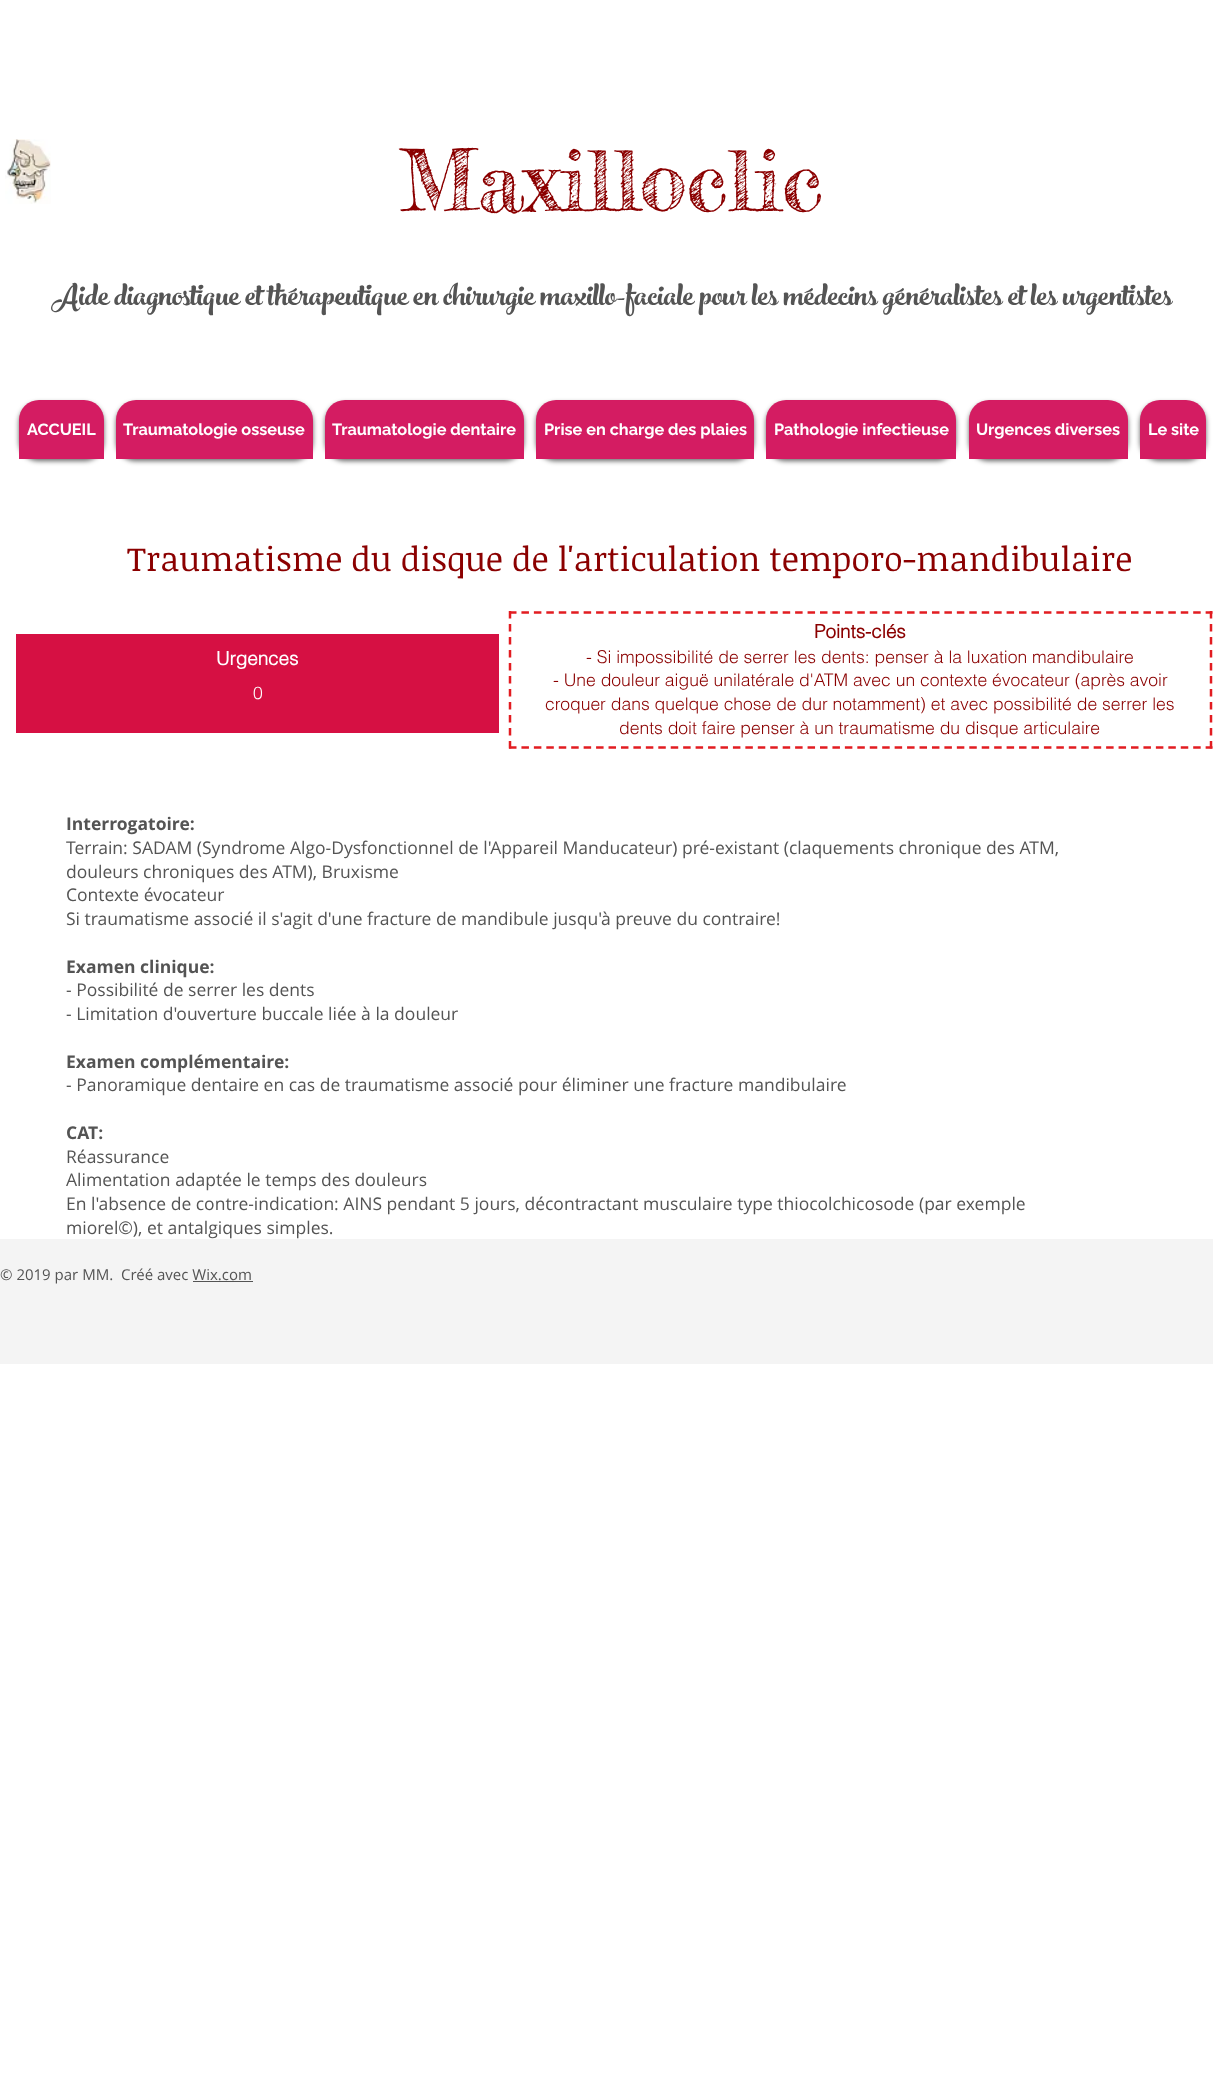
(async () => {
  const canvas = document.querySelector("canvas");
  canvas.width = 1213;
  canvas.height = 2074;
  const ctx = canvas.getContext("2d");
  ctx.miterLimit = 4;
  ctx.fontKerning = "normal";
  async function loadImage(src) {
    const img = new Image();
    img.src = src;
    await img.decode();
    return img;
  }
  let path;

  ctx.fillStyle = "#ffffff";
  ctx.fillRect(0, 0, 1213, 2074);
  ctx.drawImage(await loadImage("img/1.png"), 5, 139, 46, 65);
  ctx.fillStyle = "rgba(0, 0, 0, 0.6)";
  ctx.filter = "blur(2.5px)";
  ctx.beginPath();
  ctx.roundRect(19, 403, 85, 58, 20);
  ctx.fill();
  ctx.filter = "none";
  ctx.fillStyle = "#d41c62";
  ctx.beginPath();
  ctx.roundRect(19, 400, 85, 59, [20, 20, 0, 0]);
  ctx.fill();
  ctx.fillStyle = "rgba(0, 0, 0, 0.6)";
  ctx.filter = "blur(2.5px)";
  ctx.beginPath();
  ctx.roundRect(116, 403, 197, 58, 20);
  ctx.fill();
  ctx.filter = "none";
  ctx.fillStyle = "#d41c62";
  ctx.beginPath();
  ctx.roundRect(116, 400, 197, 59, [20, 20, 0, 0]);
  ctx.fill();
  ctx.fillStyle = "rgba(0, 0, 0, 0.6)";
  ctx.filter = "blur(2.5px)";
  ctx.beginPath();
  ctx.roundRect(325, 403, 199, 58, 20);
  ctx.fill();
  ctx.filter = "none";
  ctx.fillStyle = "#d41c62";
  ctx.beginPath();
  ctx.roundRect(325, 400, 199, 59, [20, 20, 0, 0]);
  ctx.fill();
  ctx.fillStyle = "rgba(0, 0, 0, 0.6)";
  ctx.filter = "blur(2.5px)";
  ctx.beginPath();
  ctx.roundRect(536, 403, 218, 58, 20);
  ctx.fill();
  ctx.filter = "none";
  ctx.fillStyle = "#d41c62";
  ctx.beginPath();
  ctx.roundRect(536, 400, 218, 59, [20, 20, 0, 0]);
  ctx.fill();
  ctx.fillStyle = "rgba(0, 0, 0, 0.6)";
  ctx.filter = "blur(2.5px)";
  ctx.beginPath();
  ctx.roundRect(766, 403, 190, 58, 20);
  ctx.fill();
  ctx.filter = "none";
  ctx.fillStyle = "#d41c62";
  ctx.beginPath();
  ctx.roundRect(766, 400, 190, 59, [20, 20, 0, 0]);
  ctx.fill();
  ctx.fillStyle = "rgba(0, 0, 0, 0.6)";
  ctx.filter = "blur(2.5px)";
  ctx.beginPath();
  ctx.roundRect(969, 403, 159, 58, 20);
  ctx.fill();
  ctx.filter = "none";
  ctx.fillStyle = "#d41c62";
  ctx.beginPath();
  ctx.roundRect(969, 400, 159, 59, [20, 20, 0, 0]);
  ctx.fill();
  ctx.fillStyle = "rgba(0, 0, 0, 0.6)";
  ctx.filter = "blur(2.5px)";
  ctx.beginPath();
  ctx.roundRect(1140, 403, 66, 58, 20);
  ctx.fill();
  ctx.filter = "none";
  ctx.fillStyle = "#d41c62";
  ctx.beginPath();
  ctx.roundRect(1140, 400, 66, 59, [20, 20, 0, 0]);
  ctx.fill();
  path = new Path2D("M509 612.5H1212.5");
  ctx.strokeStyle = "#e21c21";
  ctx.lineWidth = 2.5;
  ctx.setLineDash([7.5, 4.94]);
  ctx.stroke(path);
  path = new Path2D("M1211 611V749");
  ctx.setLineDash([7.5, 5.5]);
  ctx.stroke(path);
  path = new Path2D("M509 747.5H1212.5");
  ctx.setLineDash([7.5, 4.94]);
  ctx.stroke(path);
  path = new Path2D("M510 611V749");
  ctx.setLineDash([7.5, 5.5]);
  ctx.stroke(path);
  for (const [x, y, w, h, color] of [
    [16, 634, 483, 99, "#d61043"],
    [0, 1239, 1213, 125, "#f4f4f4"],
    [193, 1281, 60, 1, "#545454"],
  ]) {
    ctx.fillStyle = color;
    ctx.fillRect(x, y, w, h);
  }
  ctx.font = "83.75px Fredericka the Great";
  ctx.fillStyle = "#8b0000";
  ctx.fillText("Maxilloclic", 400, 211);
  ctx.font = "46.25px 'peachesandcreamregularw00'";
  ctx.fillStyle = "#545454";
  ctx.fillText("Aide diagnostique et thérapeutique en chirurgie maxillo-faciale pour les médecins généralistes et les urgentistes", 51, 305);
  ctx.font = "bold 16.25px Raleway";
  ctx.fillStyle = "#ffffff";
  for (const [text, x, y] of [
    ["ACCUEIL", 27, 435],
    ["Traumatologie osseuse", 123, 435],
    ["Traumatologie dentaire", 332, 435],
    ["Prise en charge des plaies", 544, 435],
    ["Pathologie infectieuse", 774, 435],
    ["Urgences diverses", 976, 435],
    ["Le site", 1148, 435],
  ]) {
    ctx.fillText(text, x, y);
  }
  ctx.font = "33.75px Noticia Text";
  ctx.fillStyle = "#8b0000";
  ctx.fillText("Traumatisme du disque de l'articulation temporo-mandibulaire", 127, 571);
  ctx.font = "bold 18.75px helvetica";
  ctx.fillStyle = "#ffffff";
  ctx.fillText("Urgences", 216, 665);
  ctx.font = "300 17.5px helvetica";
  ctx.fillText("0", 253, 699);
  ctx.font = "bold 18.75px helvetica";
  ctx.fillStyle = "#8b0000";
  ctx.fillText("Points-clés", 814, 638);
  ctx.font = "300 17.5px helvetica";
  for (const [text, x, y] of [
    ["- Si impossibilité de serrer les dents: penser à la luxation mandibulaire", 586, 663],
    ["- Une douleur aiguë unilatérale d'ATM avec un contexte évocateur (après avoir", 553, 686],
    ["croquer dans quelque chose de dur notamment) et avec possibilité de serrer les", 545, 710],
    ["dents doit faire penser à un traumatisme du disque articulaire", 619, 734],
  ]) {
    ctx.fillText(text, x, y);
  }
  ctx.font = "bold 17.5px Open Sans";
  ctx.fillStyle = "#545454";
  ctx.fillText("Interrogatoire:", 66, 830);
  ctx.font = "17.5px Open Sans";
  for (const [text, x, y] of [
    ["Terrain: SADAM (Syndrome Algo-Dysfonctionnel de l'Appareil Manducateur) pré-existant (claquements chronique des ATM,", 66, 854],
    ["douleurs chroniques des ATM), Bruxisme", 66, 878],
    ["Contexte évocateur", 66, 901],
    ["Si traumatisme associé il s'agit d'une fracture de mandibule jusqu'à preuve du contraire!", 66, 925],
  ]) {
    ctx.fillText(text, x, y);
  }
  ctx.font = "bold 17.5px Open Sans";
  ctx.fillText("Examen clinique:", 66, 973);
  ctx.font = "17.5px Open Sans";
  ctx.fillText("- Possibilité de serrer les dents", 66, 996);
  ctx.fillText("- Limitation d'ouverture buccale liée à la douleur", 66, 1020);
  ctx.font = "bold 17.5px Open Sans";
  ctx.fillText("Examen complémentaire:", 66, 1068);
  ctx.font = "17.5px Open Sans";
  ctx.fillText("- Panoramique dentaire en cas de traumatisme associé pour éliminer une fracture mandibulaire", 66, 1091);
  ctx.font = "bold 17.5px Open Sans";
  ctx.fillText("CAT:", 66, 1139);
  ctx.font = "17.5px Open Sans";
  for (const [text, x, y] of [
    ["Réassurance", 66, 1163],
    ["Alimentation adaptée le temps des douleurs", 66, 1186],
    ["En l'absence de contre-indication: AINS pendant 5 jours, décontractant musculaire type thiocolchicosode (par exemple", 66, 1210],
    ["miorel©), et antalgiques simples.", 66, 1234],
  ]) {
    ctx.fillText(text, x, y);
  }
  ctx.font = "15px Open Sans";
  ctx.fillText("© 2019 par MM.  Créé avec Wix.com", 0, 1280);
})();
